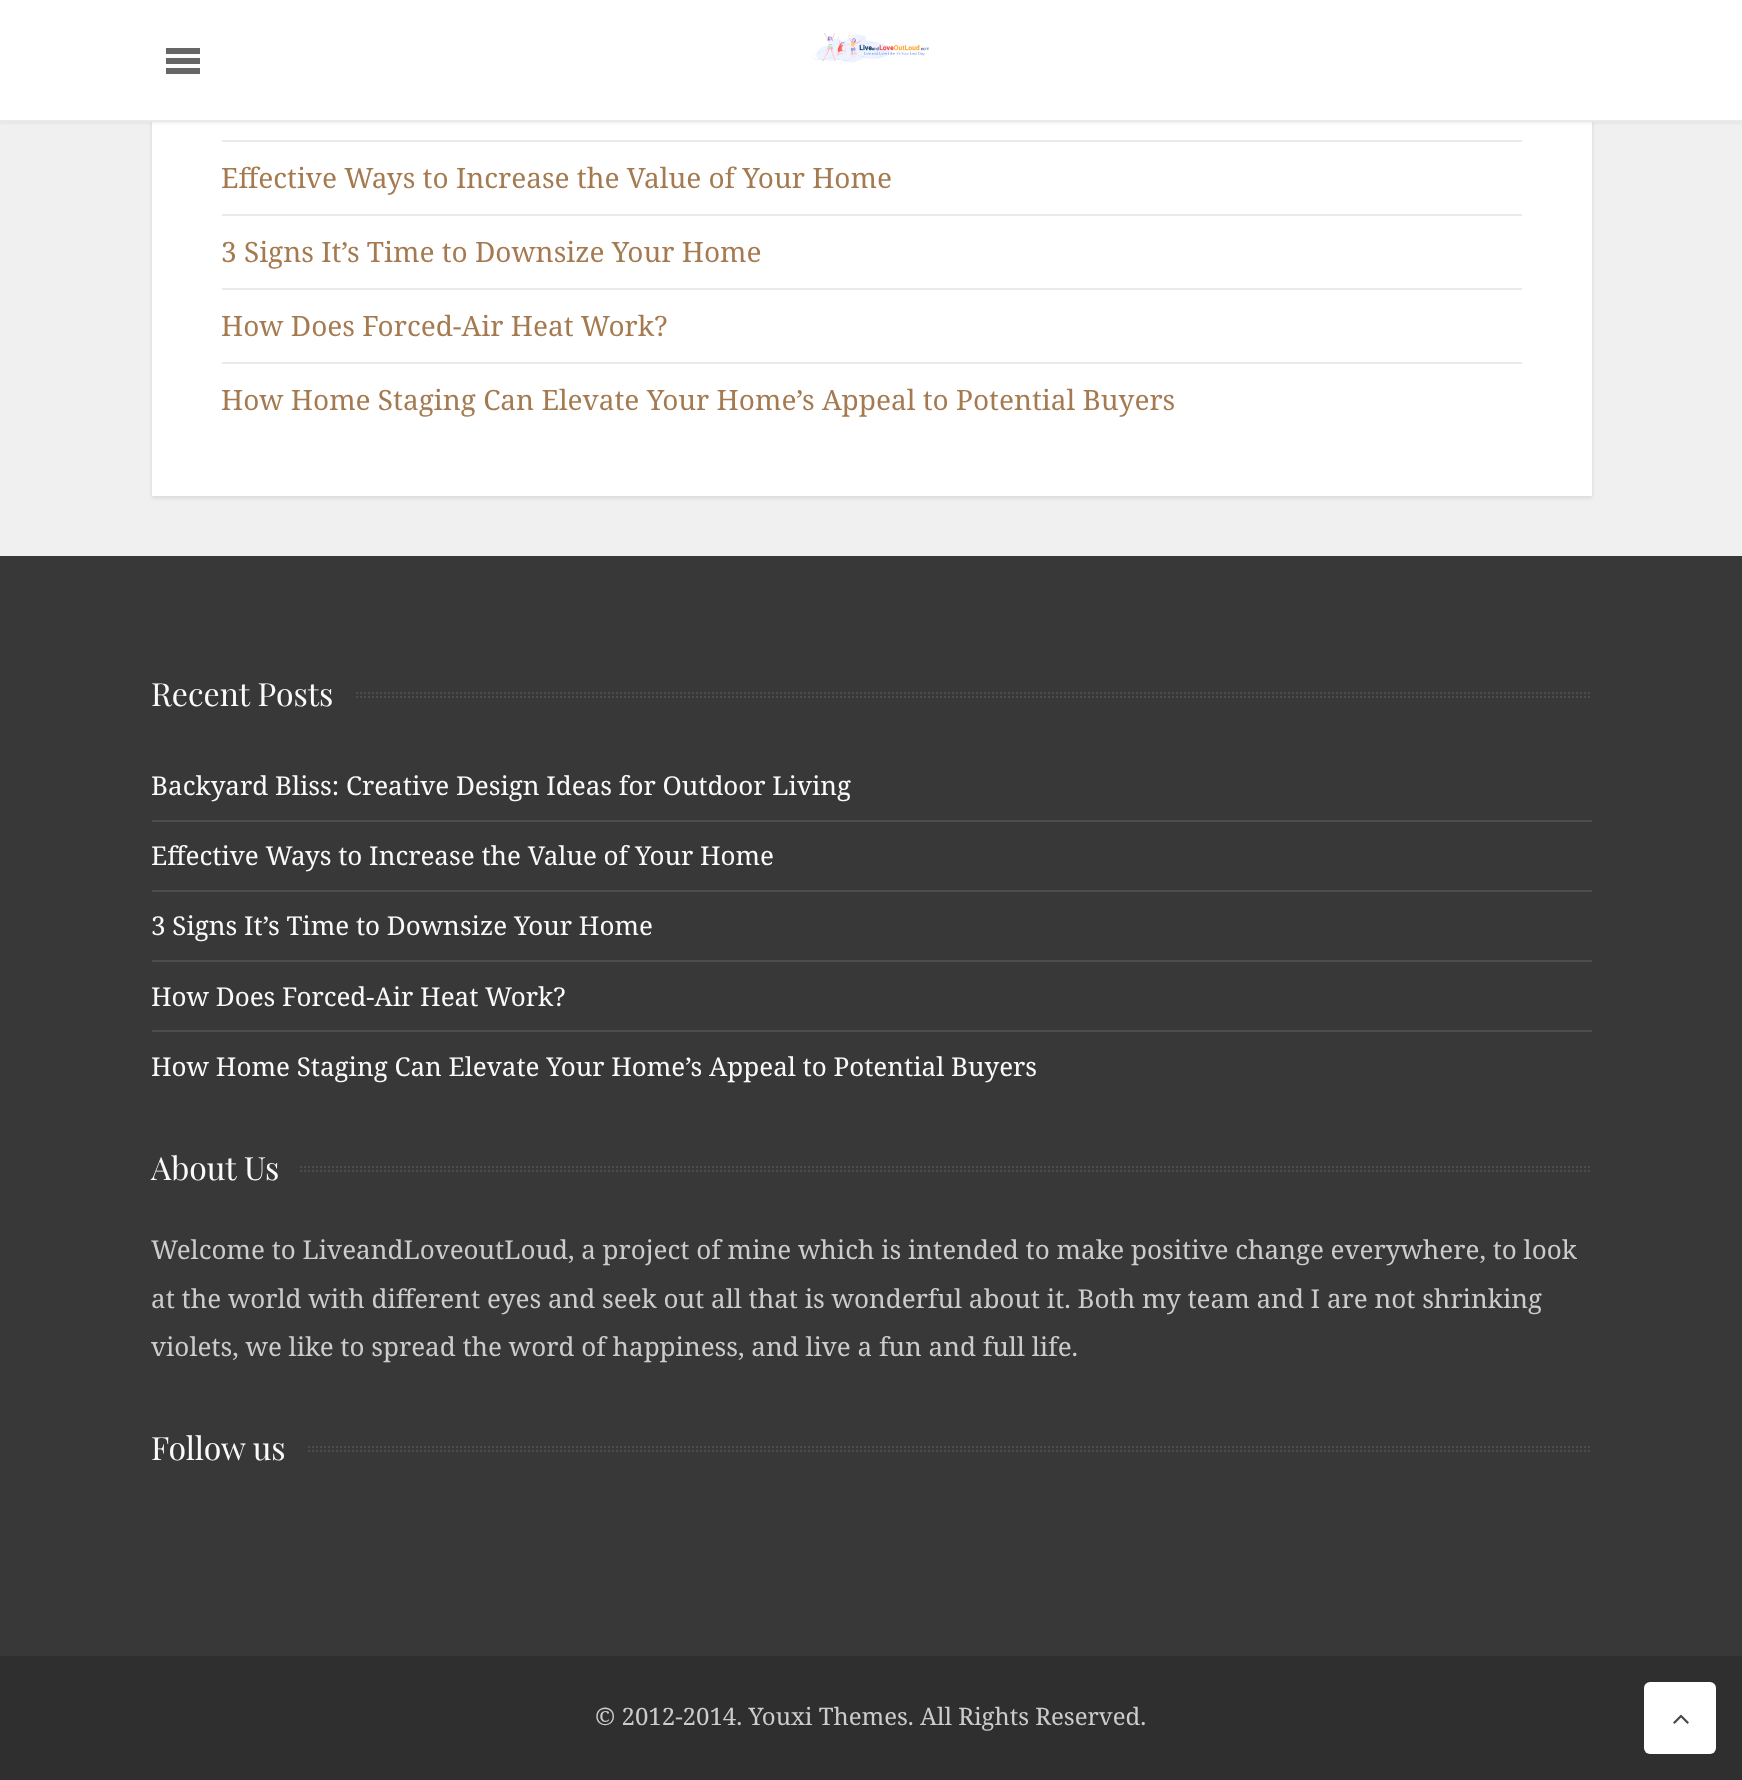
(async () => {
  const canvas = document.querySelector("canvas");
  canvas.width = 1742;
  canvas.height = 1780;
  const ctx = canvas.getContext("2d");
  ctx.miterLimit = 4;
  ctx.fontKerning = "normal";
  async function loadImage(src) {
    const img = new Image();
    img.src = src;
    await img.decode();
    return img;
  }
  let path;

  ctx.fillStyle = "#f0f0f0";
  ctx.fillRect(0, 0, 1742, 1780);
  ctx.fillStyle = "rgba(0, 0, 0, 0.1)";
  ctx.filter = "blur(2px)";
  ctx.beginPath();
  ctx.rect(152, 0, 1440, 498);
  ctx.fill();
  ctx.filter = "none";
  ctx.fillStyle = "#ffffff";
  ctx.fillRect(152, 122, 1440, 374);
  ctx.fillStyle = "rgba(0, 0, 0, 0.1)";
  ctx.filter = "blur(2px)";
  ctx.beginPath();
  ctx.rect(0, 2, 1742, 120);
  ctx.fill();
  ctx.filter = "none";
  for (const [x, y, w, h, color] of [
    [0, 0, 1742, 120, "#ffffff"],
    [166, 58, 34, 6, "#666666"],
    [166, 48, 34, 6, "#666666"],
    [166, 68, 34, 6, "#666666"],
  ]) {
    ctx.fillStyle = color;
    ctx.fillRect(x, y, w, h);
  }
  ctx.drawImage(await loadImage("img/1.png"), 812, 33, 117, 30);
  for (const [x, y, w, h, color] of [
    [0, 120, 1742, 2, "#eaeaea"],
    [222, 140, 1300, 2, "#eaeaea"],
    [222, 214, 1300, 2, "#eaeaea"],
    [222, 288, 1300, 2, "#eaeaea"],
    [222, 362, 1300, 2, "#eaeaea"],
    [0, 556, 1742, 1100, "#383838"],
  ]) {
    ctx.fillStyle = color;
    ctx.fillRect(x, y, w, h);
  }
  path = new Path2D("M152 693H1592");
  ctx.strokeStyle = "#4d4d4d";
  ctx.lineWidth = 2;
  ctx.setLineDash([2, 2]);
  ctx.stroke(path);
  path = new Path2D("M152 697H1592");
  ctx.stroke(path);
  for (const [x, y, w, h, color] of [
    [152, 692, 202, 6, "#383838"],
    [152, 820, 1440, 2, "#4d4d4d"],
    [152, 890, 1440, 2, "#4d4d4d"],
    [152, 960, 1440, 2, "#4d4d4d"],
    [152, 1030, 1440, 2, "#4d4d4d"],
  ]) {
    ctx.fillStyle = color;
    ctx.fillRect(x, y, w, h);
  }
  path = new Path2D("M152 1167H1592");
  ctx.stroke(path);
  path = new Path2D("M152 1171H1592");
  ctx.stroke(path);
  ctx.fillStyle = "#383838";
  ctx.fillRect(152, 1166, 146, 6);
  path = new Path2D("M152 1447H1592");
  ctx.stroke(path);
  path = new Path2D("M152 1451H1592");
  ctx.stroke(path);
  ctx.fillRect(152, 1446, 154, 6);
  ctx.fillStyle = "#2f2f2f";
  ctx.fillRect(0, 1656, 1742, 124);
  ctx.fillStyle = "#ffffff";
  ctx.beginPath();
  ctx.roundRect(1644, 1682, 72, 72, 6);
  ctx.fill();
  ctx.drawImage(await loadImage("img/2.png"), 1673, 1714, 16, 10);
  ctx.font = "28px Noto Serif";
  ctx.fillStyle = "#a57a50";
  for (const [text, x, y] of [
    ["Effective Ways to Increase the Value of Your Home", 221, 188],
    ["3 Signs It’s Time to Downsize Your Home", 221, 262],
    ["How Does Forced-Air Heat Work?", 221, 336],
    ["How Home Staging Can Elevate Your Home’s Appeal to Potential Buyers", 221, 410],
  ]) {
    ctx.fillText(text, x, y);
  }
  ctx.font = "32px Playfair Display";
  ctx.fillStyle = "#fafafa";
  ctx.fillText("Recent Posts", 151, 706);
  ctx.font = "26px Noto Serif";
  for (const [text, x, y] of [
    ["Backyard Bliss: Creative Design Ideas for Outdoor Living", 151, 795],
    ["Effective Ways to Increase the Value of Your Home", 151, 865],
    ["3 Signs It’s Time to Downsize Your Home", 151, 935],
    ["How Does Forced-Air Heat Work?", 151, 1006],
    ["How Home Staging Can Elevate Your Home’s Appeal to Potential Buyers", 151, 1076],
  ]) {
    ctx.fillText(text, x, y);
  }
  ctx.font = "32px Playfair Display";
  ctx.fillText("About Us", 151, 1180);
  ctx.font = "26px Noto Serif";
  ctx.fillStyle = "#cccccc";
  for (const [text, x, y] of [
    ["Welcome to LiveandLoveoutLoud, a project of mine which is intended to make positive change everywhere, to look", 151, 1259],
    ["at the world with different eyes and seek out all that is wonderful about it. Both my team and I are not shrinking", 151, 1308],
    ["violets, we like to spread the word of happiness, and live a fun and full life.", 151, 1356],
  ]) {
    ctx.fillText(text, x, y);
  }
  ctx.font = "32px Playfair Display";
  ctx.fillStyle = "#fafafa";
  ctx.fillText("Follow us", 151, 1460);
  ctx.font = "24px Noto Serif";
  ctx.fillStyle = "#cccccc";
  ctx.fillText("© 2012-2014. Youxi Themes. All Rights Reserved.", 595, 1725);
})();
